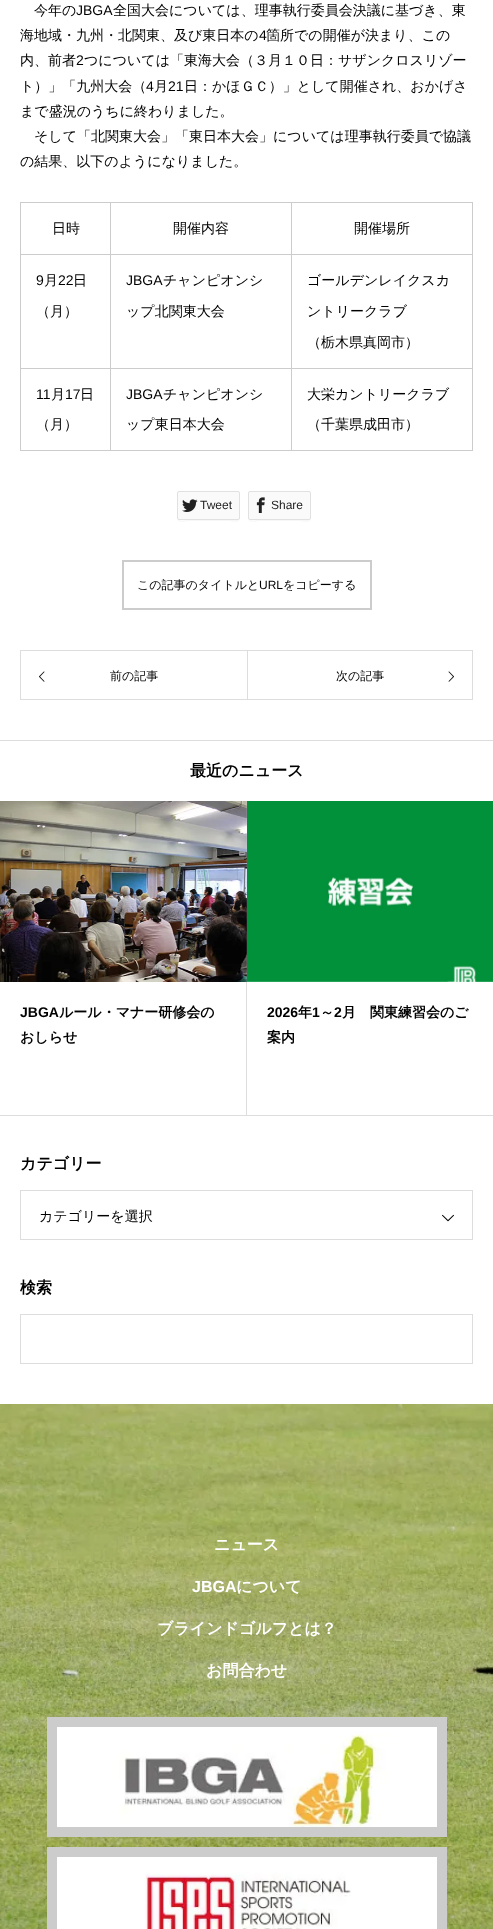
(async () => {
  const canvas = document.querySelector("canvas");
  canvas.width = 493;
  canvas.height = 1929;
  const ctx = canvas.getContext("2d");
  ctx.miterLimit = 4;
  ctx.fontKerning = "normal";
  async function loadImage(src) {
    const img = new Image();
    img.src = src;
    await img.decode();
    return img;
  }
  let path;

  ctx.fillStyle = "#ffffff";
  ctx.fillRect(0, 0, 493, 1929);
  for (const [x, y, w, h, color] of [
    [291, 202, 182, 1, "#cccccc"],
    [291, 254, 182, 1, "#cccccc"],
    [291, 368, 182, 1, "#cccccc"],
    [472, 368, 1, 83, "#cccccc"],
    [291, 450, 182, 1, "#cccccc"],
    [291, 368, 1, 83, "#cccccc"],
    [110, 368, 182, 1, "#cccccc"],
    [291, 254, 1, 115, "#cccccc"],
    [110, 254, 182, 1, "#cccccc"],
    [291, 202, 1, 53, "#cccccc"],
    [110, 202, 182, 1, "#cccccc"],
    [110, 450, 182, 1, "#cccccc"],
    [110, 368, 1, 83, "#cccccc"],
    [20, 368, 91, 1, "#cccccc"],
    [110, 254, 1, 115, "#cccccc"],
    [20, 254, 91, 1, "#cccccc"],
    [110, 202, 1, 53, "#cccccc"],
    [20, 202, 91, 1, "#cccccc"],
    [20, 450, 91, 1, "#cccccc"],
    [20, 368, 1, 83, "#cccccc"],
    [20, 254, 1, 115, "#cccccc"],
    [20, 202, 1, 53, "#cccccc"],
    [472, 254, 1, 115, "#cccccc"],
    [472, 202, 1, 53, "#cccccc"],
  ]) {
    ctx.fillStyle = color;
    ctx.fillRect(x, y, w, h);
  }
  ctx.fillStyle = "#f7f7f7";
  path = new Path2D("M177 518C177 524 185 521 189 521H228C232 521 240 524 240 518L239 520H189C185 520 177 522 177 518Z");
  ctx.fill(path);
  ctx.fillStyle = "#fafafa";
  ctx.beginPath();
  ctx.roundRect(177.5, 491.5, 62, 28, 1.5);
  ctx.fill();
  ctx.strokeStyle = "#e1e1e1";
  ctx.stroke();
  ctx.drawImage(await loadImage("img/1.png"), 182, 499, 16, 13);
  ctx.fillStyle = "#f7f7f7";
  path = new Path2D("M248 518C248 524 256 521 260 521H299C303 521 311 524 311 518L310 520H260C256 520 248 522 248 518Z");
  ctx.fill(path);
  ctx.fillStyle = "#fafafa";
  ctx.beginPath();
  ctx.roundRect(248.5, 491.5, 62, 28, 1.5);
  ctx.fill();
  ctx.stroke();
  ctx.drawImage(await loadImage("img/2.png"), 256, 497, 9, 16);
  ctx.strokeStyle = "#cccccc";
  ctx.lineWidth = 2;
  ctx.strokeRect(123, 561, 248, 48);
  for (const [x, y, w, h, color] of [
    [20, 650, 227, 1, "#dddddd"],
    [20, 699, 227, 1, "#dddddd"],
    [20, 650, 1, 50, "#dddddd"],
  ]) {
    ctx.fillStyle = color;
    ctx.fillRect(x, y, w, h);
  }
  ctx.drawImage(await loadImage("img/3.png"), 39, 671, 6, 11);
  ctx.strokeStyle = "#dddddd";
  ctx.lineWidth = 1;
  ctx.strokeRect(247.5, 650.5, 225, 49);
  ctx.drawImage(await loadImage("img/4.png"), 448, 671, 6, 11);
  ctx.fillRect(0, 740, 493, 1);
  ctx.fillRect(0, 1115, 493, 1);
  ctx.drawImage(await loadImage("img/5.png"), 0, 801, 247, 181);
  ctx.fillRect(246, 982, 1, 133);
  ctx.drawImage(await loadImage("img/6.png"), 247, 801, 246, 181);
  ctx.strokeRect(20.5, 1190.5, 452, 49);
  ctx.drawImage(await loadImage("img/7.png"), 442, 1214, 12, 8);
  ctx.strokeRect(20.5, 1314.5, 452, 49);
  ctx.drawImage(await loadImage("img/8.png"), 0, 1404, 493, 525);
  ctx.strokeStyle = "#cccccc";
  ctx.lineWidth = 10;
  ctx.strokeRect(52, 1722, 390, 110);
  ctx.drawImage(await loadImage("img/9.png"), 57, 1727, 380, 100);
  ctx.strokeRect(52, 1852, 390, 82);
  ctx.drawImage(await loadImage("img/10.png"), 57, 1857, 380, 72);
  ctx.font = "500 14px WenQuanYi Zen Hei";
  ctx.fillStyle = "#000000";
  ctx.fillText("今年の", 34, 15);
  ctx.font = "14px Liberation Sans";
  ctx.fillText("JBGA", 76, 15);
  ctx.font = "500 14px WenQuanYi Zen Hei";
  ctx.fillText("全国大会については、理事執行委員会決議に基づき、東", 113, 15);
  ctx.fillText("海地域・九州・北関東、及び東日本の", 20, 40);
  ctx.font = "14px Liberation Sans";
  ctx.fillText("4", 259, 40);
  ctx.font = "500 14px WenQuanYi Zen Hei";
  ctx.fillText("箇所での開催が決まり、この", 266, 40);
  ctx.fillText("内、前者", 20, 65);
  ctx.font = "14px Liberation Sans";
  ctx.fillText("2", 76, 65);
  ctx.font = "500 14px WenQuanYi Zen Hei";
  ctx.fillText("つについては「東海大会（３月１０日：サザンクロスリゾー", 84, 65);
  ctx.fillText("ト）」「九州大会（", 20, 91);
  ctx.font = "14px Liberation Sans";
  ctx.fillText("4", 146, 91);
  ctx.font = "500 14px WenQuanYi Zen Hei";
  ctx.fillText("月", 154, 91);
  ctx.font = "14px Liberation Sans";
  ctx.fillText("21", 168, 91);
  ctx.font = "500 14px WenQuanYi Zen Hei";
  for (const [text, x, y] of [
    ["日：かほＧＣ）」として開催され、おかげさ", 184, 91],
    ["まで盛況のうちに終わりました。", 20, 116],
    ["そして「北関東大会」「東日本大会」については理事執行委員で協議", 34, 141],
    ["の結果、以下のようになりました。", 20, 166],
    ["日時", 52, 233],
    ["開催内容", 173, 233],
    ["開催場所", 354, 233],
  ]) {
    ctx.fillText(text, x, y);
  }
  ctx.font = "14px Liberation Sans";
  ctx.fillText("9", 36, 285);
  ctx.font = "500 14px WenQuanYi Zen Hei";
  ctx.fillText("月", 44, 285);
  ctx.font = "14px Liberation Sans";
  ctx.fillText("22", 58, 285);
  ctx.font = "500 14px WenQuanYi Zen Hei";
  ctx.fillText("日", 73, 285);
  ctx.fillText("（月）", 36, 316);
  ctx.font = "14px Liberation Sans";
  ctx.fillText("JBGA", 126, 285);
  ctx.font = "500 14px WenQuanYi Zen Hei";
  for (const [text, x, y] of [
    ["チャンピオンシ", 163, 285],
    ["ップ北関東大会", 126, 316],
    ["ゴールデンレイクスカ", 307, 285],
    ["ントリークラブ", 307, 316],
    ["（栃木県真岡市）", 307, 347],
  ]) {
    ctx.fillText(text, x, y);
  }
  ctx.font = "14px Liberation Sans";
  ctx.fillText("11", 36, 399);
  ctx.font = "500 14px WenQuanYi Zen Hei";
  ctx.fillText("月", 51, 399);
  ctx.font = "14px Liberation Sans";
  ctx.fillText("17", 65, 399);
  ctx.font = "500 14px WenQuanYi Zen Hei";
  ctx.fillText("日", 80, 399);
  ctx.fillText("（月）", 36, 429);
  ctx.font = "14px Liberation Sans";
  ctx.fillText("JBGA", 126, 399);
  ctx.font = "500 14px WenQuanYi Zen Hei";
  for (const [text, x, y] of [
    ["チャンピオンシ", 163, 399],
    ["ップ東日本大会", 126, 429],
    ["大栄カントリークラブ", 307, 399],
    ["（千葉県成田市）", 307, 429],
  ]) {
    ctx.fillText(text, x, y);
  }
  ctx.font = "12px Liberation Sans";
  ctx.fillStyle = "#222222";
  ctx.fillText("Tweet", 200, 509);
  ctx.fillText("Share", 271, 509);
  ctx.font = "500 12px WenQuanYi Zen Hei";
  ctx.fillStyle = "#000000";
  ctx.fillText("この記事のタイトルと", 137, 589);
  ctx.font = "12px Liberation Sans";
  ctx.fillText("URL", 259, 589);
  ctx.font = "500 12px WenQuanYi Zen Hei";
  for (const [text, x, y] of [
    ["をコピーする", 283, 589],
    ["前の記事", 110, 680],
    ["次の記事", 336, 680],
  ]) {
    ctx.fillText(text, x, y);
  }
  ctx.font = "bold 16px WenQuanYi Zen Hei";
  ctx.fillText("最近のニュース", 190, 776);
  ctx.font = "bold 14px Liberation Sans";
  ctx.fillText("JBGA", 20, 1017);
  ctx.font = "bold 14px WenQuanYi Zen Hei";
  ctx.fillText("ルール・マナー研修会の", 59, 1017);
  ctx.fillText("おしらせ", 20, 1042);
  ctx.font = "bold 14px Liberation Sans";
  ctx.fillText("2026", 267, 1017);
  ctx.font = "bold 14px WenQuanYi Zen Hei";
  ctx.fillText("年", 298, 1017);
  ctx.font = "bold 14px Liberation Sans";
  ctx.fillText("1", 312, 1017);
  ctx.font = "bold 14px WenQuanYi Zen Hei";
  ctx.fillText("～", 320, 1017);
  ctx.font = "bold 14px Liberation Sans";
  ctx.fillText("2", 334, 1017);
  ctx.font = "bold 14px WenQuanYi Zen Hei";
  ctx.fillText("月　関東練習会のご", 342, 1017);
  ctx.fillText("案内", 267, 1042);
  ctx.font = "bold 16px WenQuanYi Zen Hei";
  ctx.fillText("カテゴリー", 20, 1169);
  ctx.font = "500 14px WenQuanYi Zen Hei";
  ctx.fillText("カテゴリーを選択", 39, 1221);
  ctx.font = "bold 16px WenQuanYi Zen Hei";
  ctx.fillText("検索", 20, 1293);
  ctx.fillStyle = "#ffffff";
  ctx.fillText("ニュース", 214, 1550);
  ctx.font = "bold 16px Liberation Sans";
  ctx.fillText("JBGA", 192, 1592);
  ctx.font = "bold 16px WenQuanYi Zen Hei";
  for (const [text, x, y] of [
    ["について", 236, 1592],
    ["ブラインドゴルフとは？", 157, 1634],
    ["お問合わせ", 206, 1676],
  ]) {
    ctx.fillText(text, x, y);
  }
})();
